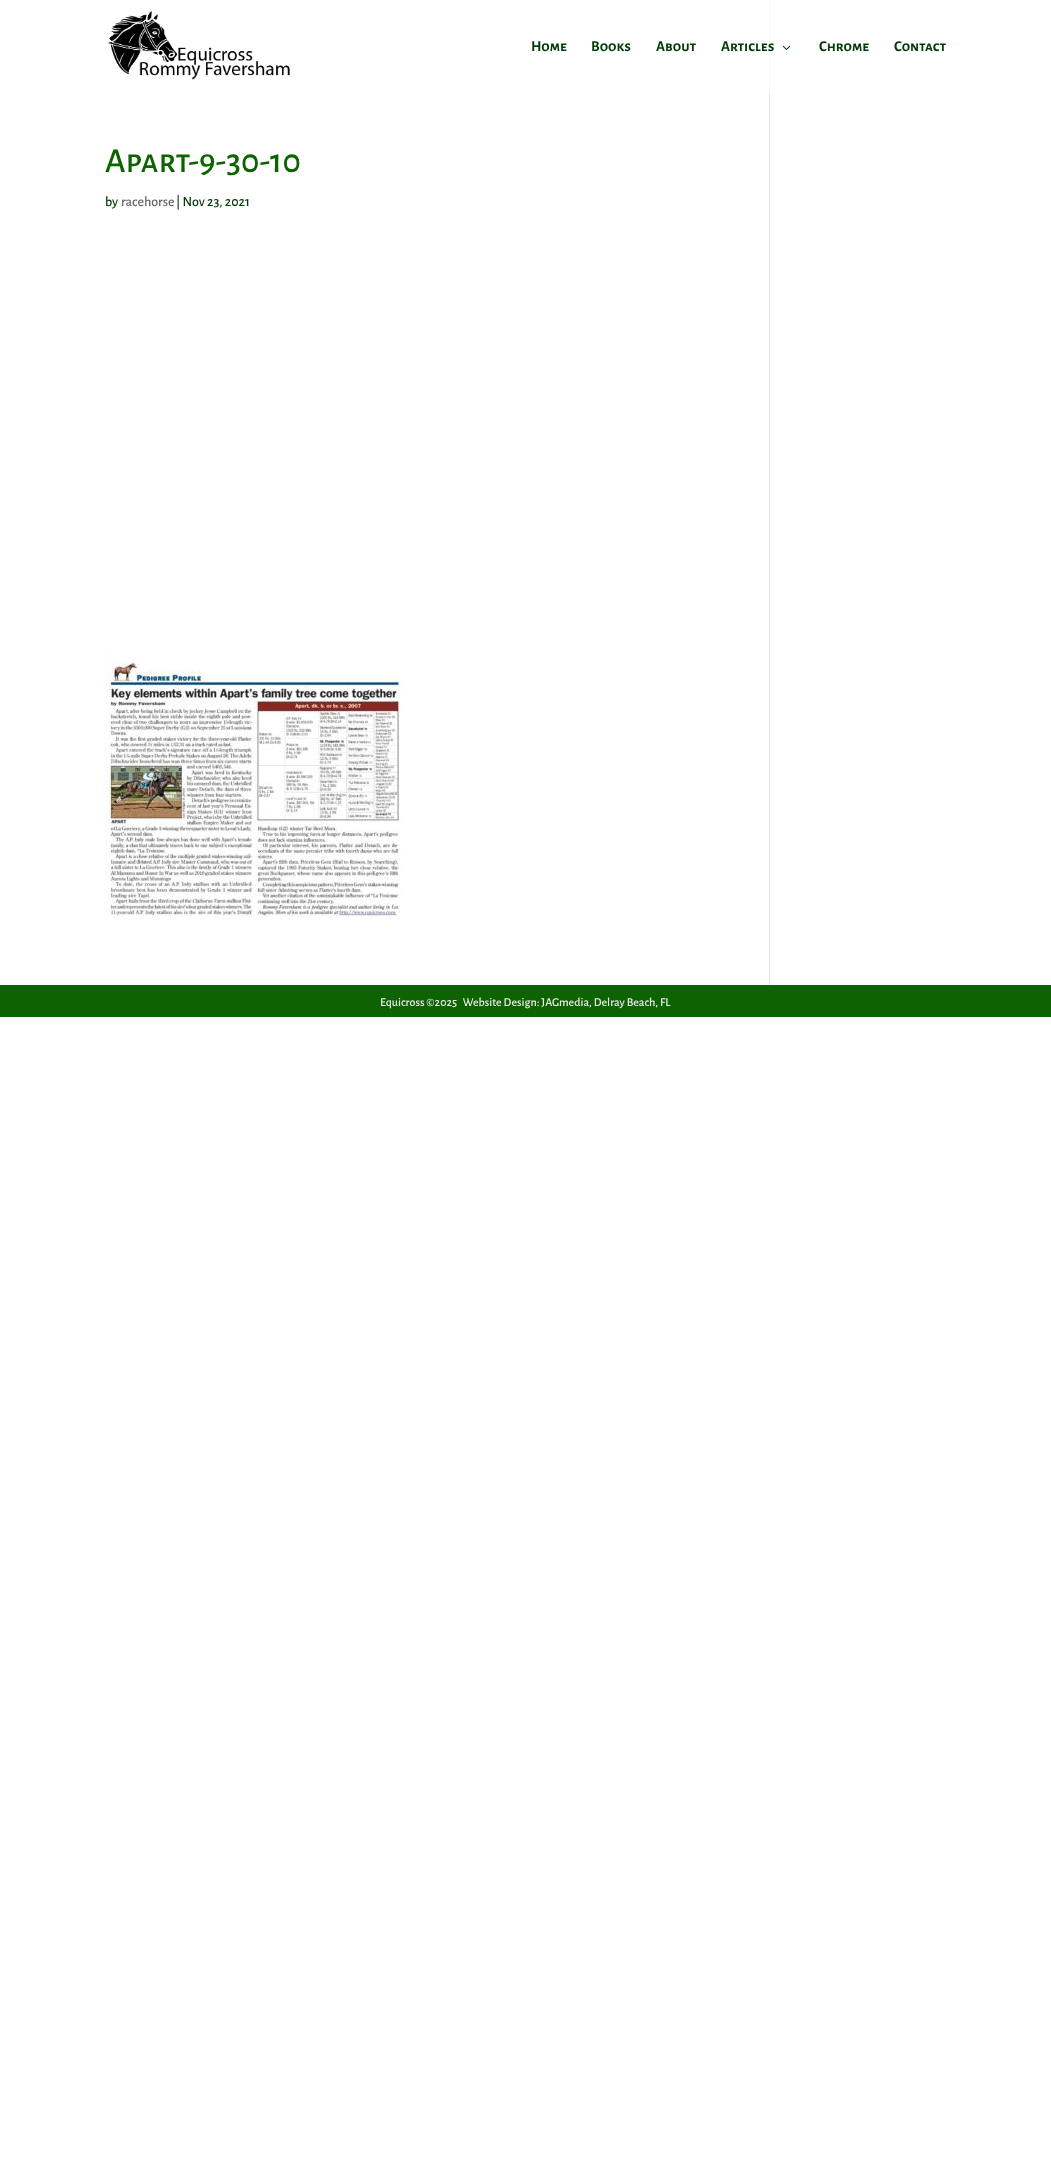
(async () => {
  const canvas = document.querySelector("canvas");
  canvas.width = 1051;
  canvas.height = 2177;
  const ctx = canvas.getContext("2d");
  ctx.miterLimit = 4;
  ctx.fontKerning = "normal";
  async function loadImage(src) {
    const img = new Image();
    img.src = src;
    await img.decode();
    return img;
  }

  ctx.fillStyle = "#ffffff";
  ctx.fillRect(0, 0, 1051, 2177);
  ctx.drawImage(await loadImage("img/1.png"), 108, 11, 182, 69);
  ctx.drawImage(await loadImage("img/2.png"), 782, 45, 9, 5);
  ctx.drawImage(await loadImage("img/3.png"), 105, 654, 300, 264);
  for (const [x, y, w, h, color] of [
    [769, 94, 1, 891, "#e2e2e2"],
    [769, 0, 1, 94, "#f8f8f8"],
    [0, 985, 1051, 32, "#0d6300"],
  ]) {
    ctx.fillStyle = color;
    ctx.fillRect(x, y, w, h);
  }
  ctx.font = "bold 15px Alegreya Sans SC";
  ctx.fillStyle = "#003a07";
  for (const [text, x, y] of [
    ["Home", 531, 51],
    ["Books", 591, 51],
    ["About", 656, 51],
    ["Articles", 721, 51],
    ["Chrome", 819, 51],
    ["Contact", 894, 51],
  ]) {
    ctx.fillText(text, x, y);
  }
  ctx.font = "500 35px Alegreya Sans SC";
  ctx.fillStyle = "#0d6300";
  ctx.fillText("Apart-9-30-10", 105, 172);
  ctx.font = "500 14px Alegreya Sans";
  ctx.fillStyle = "#003a07";
  ctx.fillText("by", 105, 206);
  ctx.fillStyle = "#666666";
  ctx.fillText("racehorse", 121, 206);
  ctx.fillStyle = "#003a07";
  ctx.fillText("| Nov 23, 2021", 176, 206);
  ctx.font = "500 12px Alegreya Sans";
  ctx.fillStyle = "#ededed";
  ctx.fillText("Equicross ©2025   Website Design: JAGmedia, Delray Beach, FL", 380, 1006);
})();
